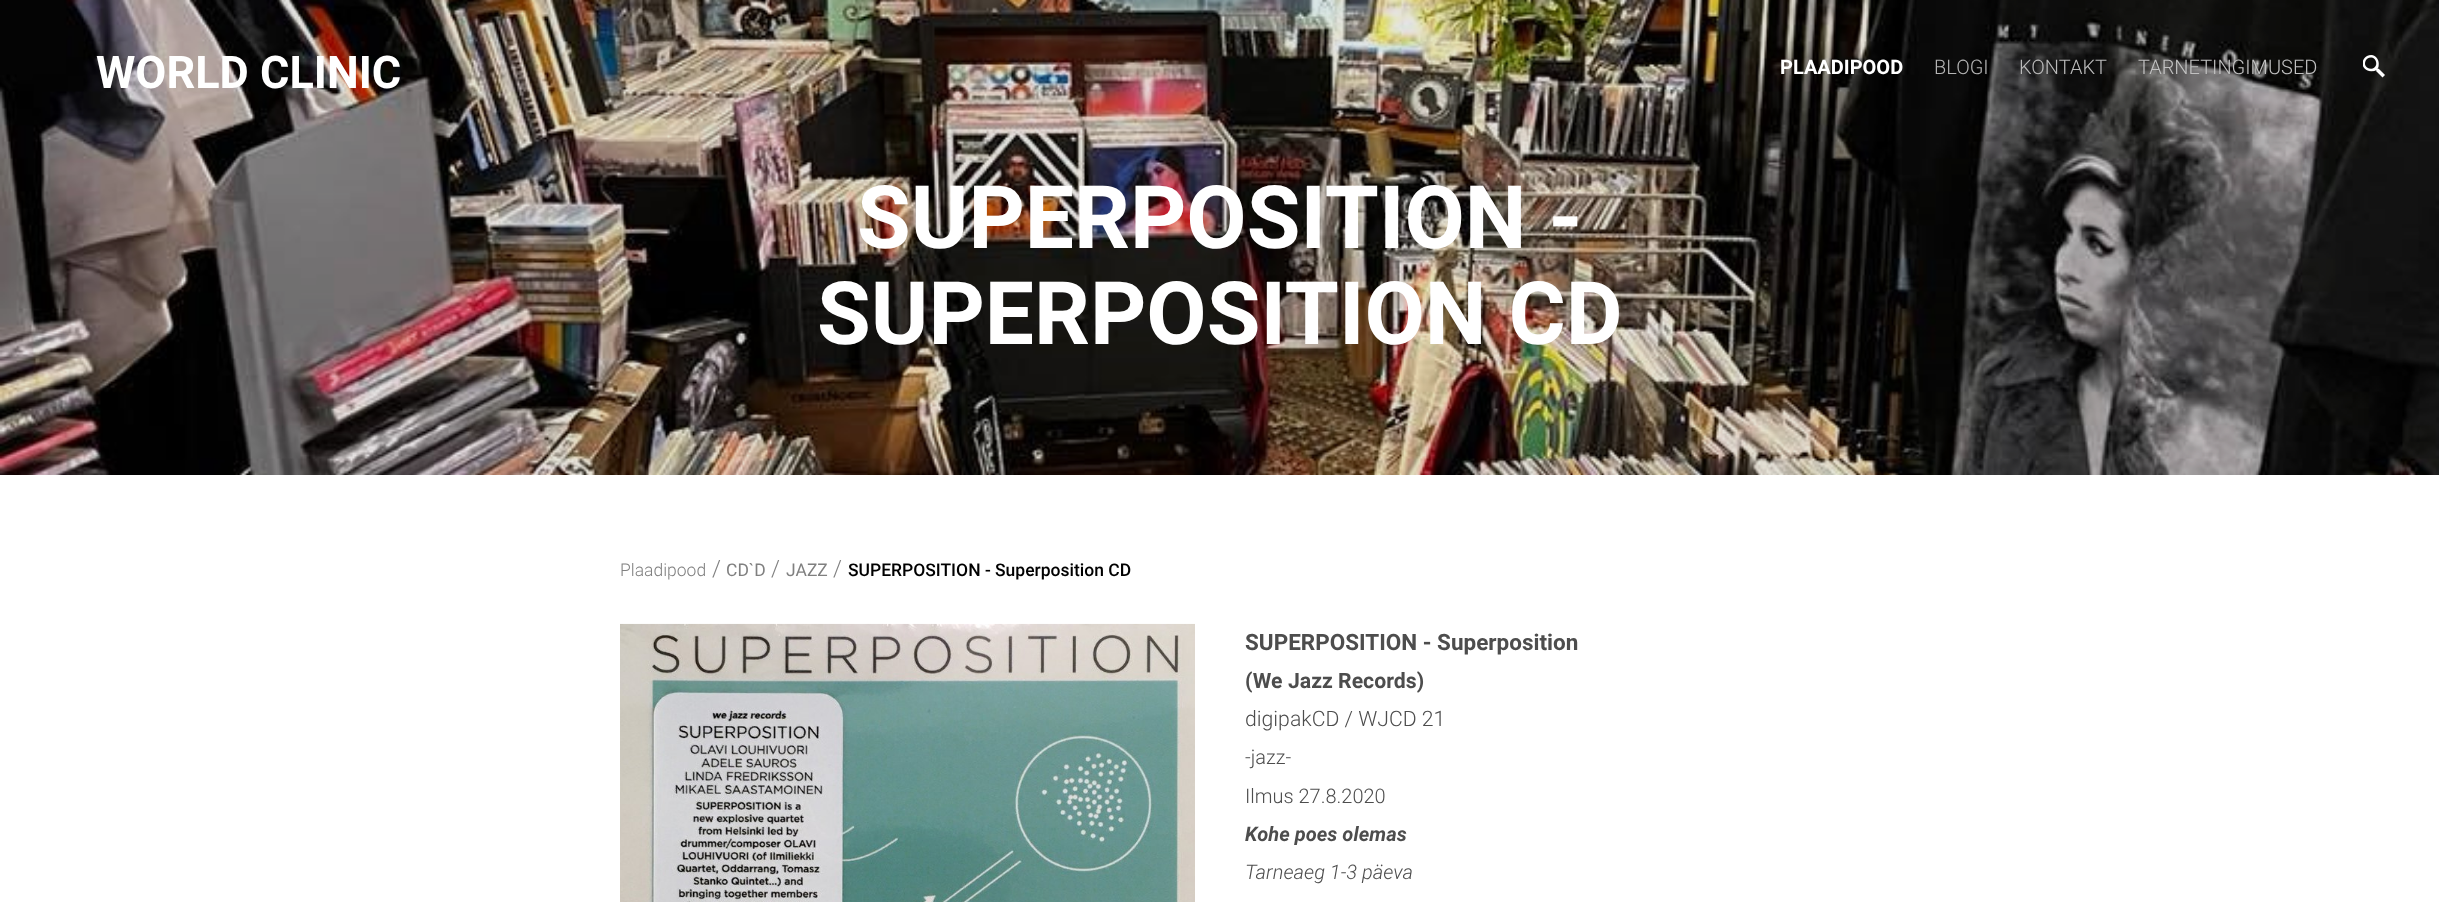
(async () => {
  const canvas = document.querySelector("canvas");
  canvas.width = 2439;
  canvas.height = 902;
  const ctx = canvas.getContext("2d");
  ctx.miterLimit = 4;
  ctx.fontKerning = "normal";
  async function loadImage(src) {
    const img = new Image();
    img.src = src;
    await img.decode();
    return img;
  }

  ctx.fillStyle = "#ffffff";
  ctx.fillRect(0, 0, 2439, 902);
  ctx.drawImage(await loadImage("img/1.png"), 0, 0, 2439, 475);
  ctx.drawImage(await loadImage("img/2.png"), 2363, 55, 22, 23);
  ctx.drawImage(await loadImage("img/3.png"), 620, 623, 575, 279);
  ctx.font = "bold 45px Roboto";
  ctx.fillText("WORLD CLINIC", 96, 88);
  ctx.font = "bold 20px Roboto";
  ctx.fillText("PLAADIPOOD", 1780, 74);
  ctx.font = "300 20px Roboto";
  ctx.fillStyle = "#b5b5b5";
  ctx.fillText("BLOGI", 1934, 74);
  ctx.fillStyle = "#bbbbbb";
  ctx.fillText("KONTAKT", 2019, 74);
  ctx.fillStyle = "#c1c1c1";
  ctx.fillText("TARNETINGIMUSED", 2138, 74);
  ctx.font = "bold 87.5px Roboto";
  ctx.fillStyle = "#ffffff";
  ctx.fillText("SUPERPOSITION -", 857, 248);
  ctx.fillText("SUPERPOSITION CD", 817, 344);
  ctx.font = "300 17.5px Roboto";
  ctx.fillStyle = "#808080";
  ctx.fillText("Plaadipood", 620, 576);
  ctx.font = "300 22.5px Roboto";
  ctx.fillText("/", 712, 576);
  ctx.font = "17.5px Roboto";
  ctx.fillText("CD`D", 726, 576);
  ctx.font = "300 22.5px Roboto";
  ctx.fillText("/", 771, 576);
  ctx.font = "17.5px Roboto";
  ctx.fillText("JAZZ", 786, 576);
  ctx.font = "300 22.5px Roboto";
  ctx.fillText("/", 833, 576);
  ctx.font = "500 17.5px Roboto";
  ctx.fillStyle = "#000000";
  ctx.fillText("SUPERPOSITION - Superposition CD", 848, 576);
  ctx.font = "bold 22.5px Roboto";
  ctx.fillStyle = "#4d4d4d";
  ctx.fillText("SUPERPOSITION - Superposition", 1245, 650);
  ctx.font = "bold 21.25px Roboto";
  ctx.fillText("(We Jazz Records)", 1245, 688);
  ctx.font = "300 21.25px Roboto";
  ctx.fillText("digipakCD / WJCD 21", 1245, 726);
  ctx.font = "300 20px Roboto";
  ctx.fillText("-jazz-", 1245, 764);
  ctx.fillText("Ilmus 27.8.2020", 1245, 803);
  ctx.font = "italic bold 20px Roboto";
  ctx.fillText("Kohe poes olemas", 1245, 841);
  ctx.font = "italic 300 20px Roboto";
  ctx.fillText("Tarneaeg 1-3 päeva", 1245, 879);
})();
